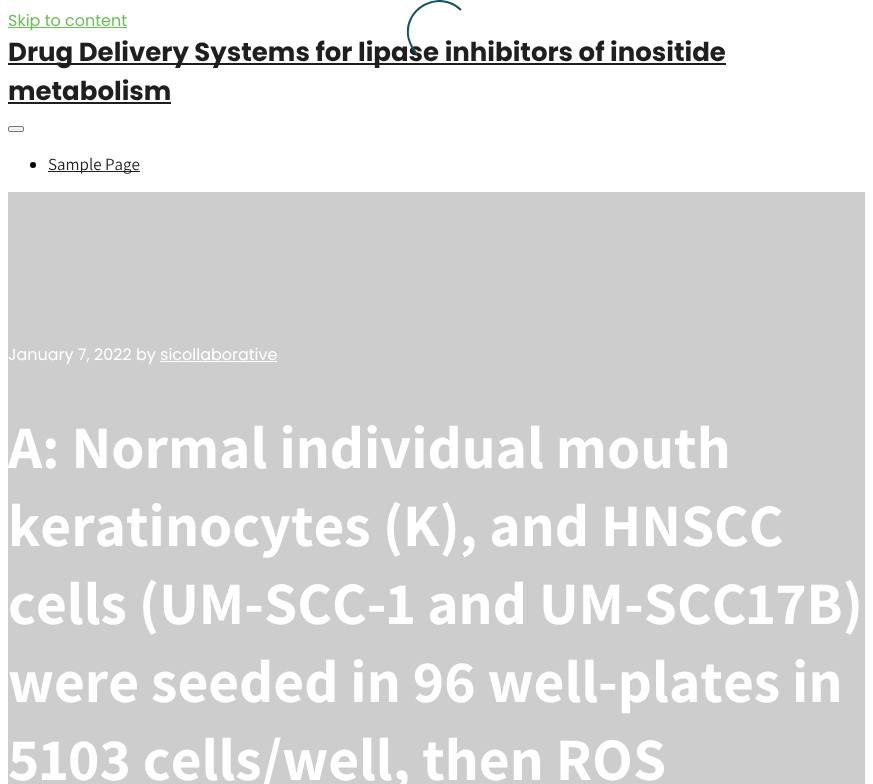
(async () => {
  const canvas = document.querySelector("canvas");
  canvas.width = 873;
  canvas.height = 784;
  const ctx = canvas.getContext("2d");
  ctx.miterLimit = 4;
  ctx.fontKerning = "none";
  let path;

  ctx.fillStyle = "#ffffff";
  ctx.fillRect(0, 0, 873, 784);
  for (const [x, y, w, h, color] of [
    [8, 27, 119, 1, "#6abe52"],
    [8, 63, 718, 2, "#1f1f1f"],
    [8, 102, 163, 2, "#1f1f1f"],
  ]) {
    ctx.fillStyle = color;
    ctx.fillRect(x, y, w, h);
  }
  ctx.fillStyle = "#efefef";
  ctx.beginPath();
  ctx.roundRect(8.5, 126.5, 15, 5, 1.5);
  ctx.fill();
  ctx.strokeStyle = "#767676";
  ctx.stroke();
  ctx.fillStyle = "#000000";
  ctx.beginPath();
  ctx.arc(33, 165, 3, 0, Math.PI * 2);
  ctx.fill();
  for (const [x, y, w, h, color] of [
    [48, 171, 92, 1, "#222222"],
    [8, 192, 857, 592, "#cdcdcd"],
    [160, 361, 117, 1, "#ffffff"],
  ]) {
    ctx.fillStyle = color;
    ctx.fillRect(x, y, w, h);
  }
  ctx.font = "16px Poppins";
  ctx.fillStyle = "#6abe52";
  ctx.fillText("Skip to content", 8, 26);
  ctx.font = "bold 26px Poppins";
  ctx.fillStyle = "#1f1f1f";
  ctx.fillText("Drug Delivery Systems for lipase inhibitors of inositide", 8, 61);
  path = new Path2D("M417 54C413 49.5 410 44 408.5 38C402.5 8.5 439.5-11.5 461 10");
  ctx.strokeStyle = "#145166";
  ctx.lineWidth = 2;
  ctx.stroke(path);
  ctx.fillText("metabolism", 8, 100);
  ctx.font = "17px Assistant";
  ctx.fillText("Sample Page", 48, 170);
  ctx.font = "16px Poppins";
  ctx.fillStyle = "#ffffff";
  ctx.fillText("January 7, 2022 by sicollaborative", 8, 360);
  ctx.font = "bold 60px Assistant";
  for (const [text, x, y] of [
    ["A: Normal individual mouth", 8, 468],
    ["keratinocytes (K), and HNSCC", 8, 546],
    ["cells (UM-SCC-1 and UM-SCC17B)", 8, 624],
    ["were seeded in 96 well-plates in", 8, 702],
    ["5103 cells/well, then ROS", 8, 780],
  ]) {
    ctx.fillText(text, x, y);
  }
})();
